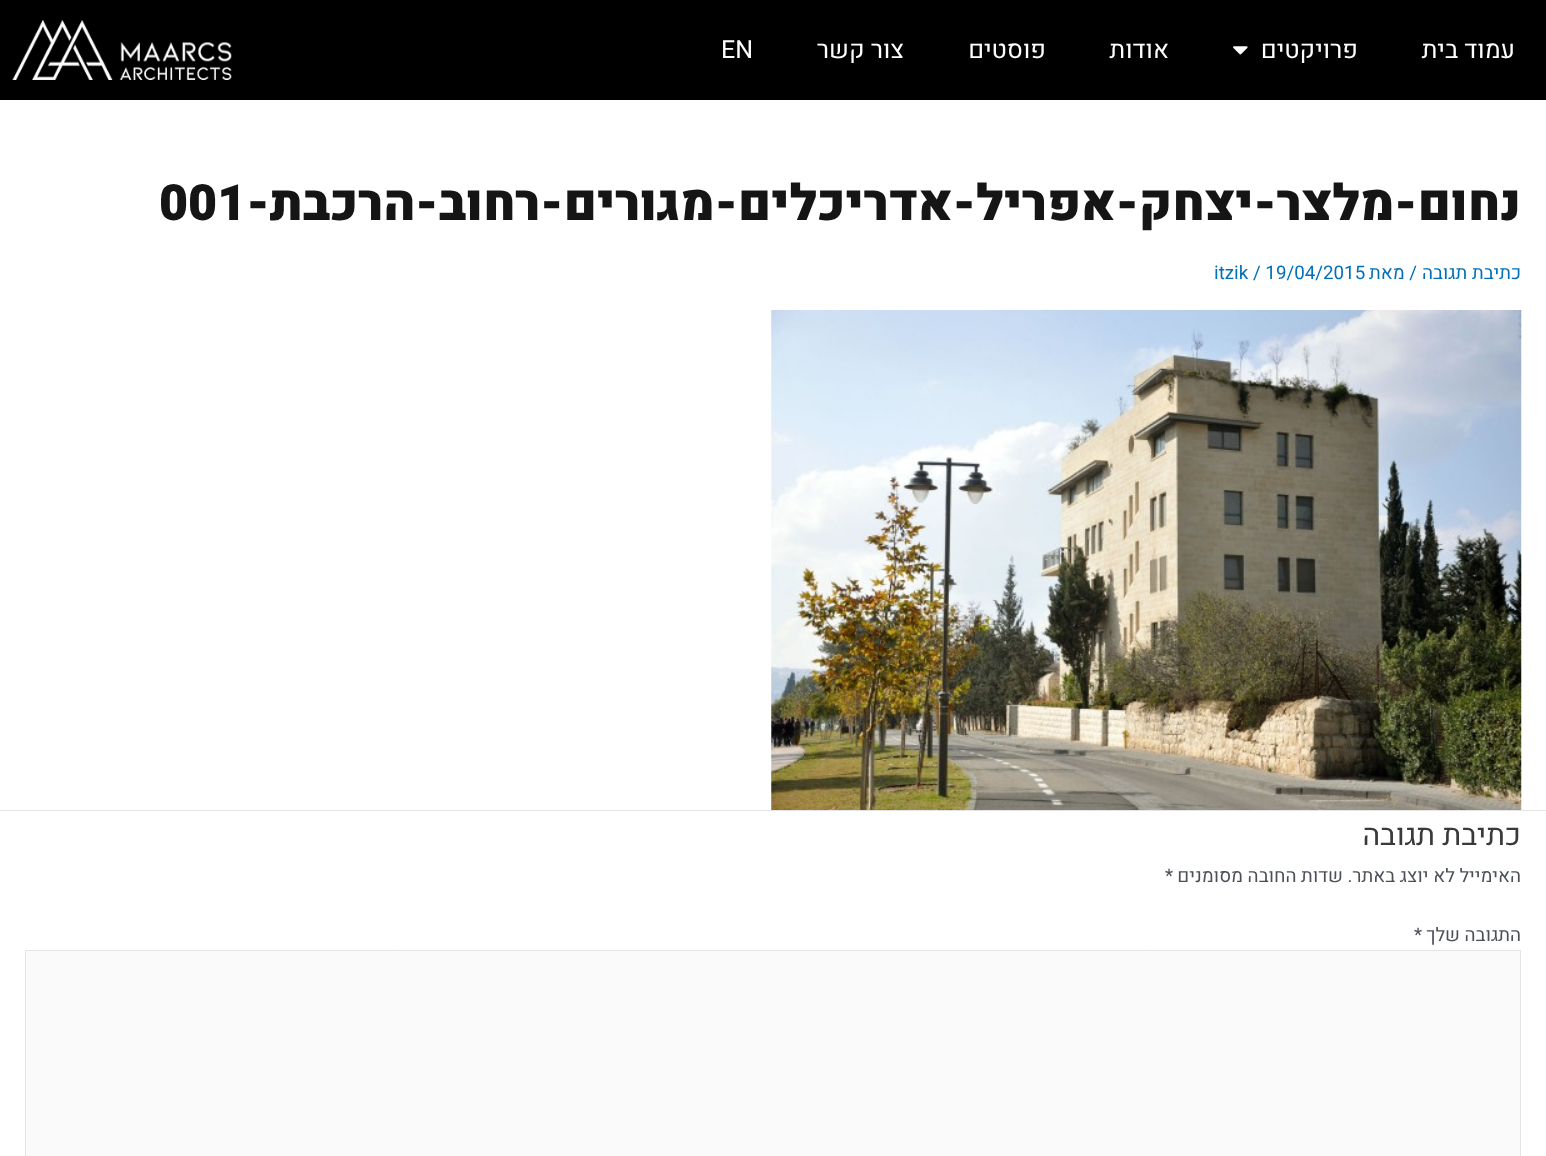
(async () => {
  const canvas = document.querySelector("canvas");
  canvas.width = 1546;
  canvas.height = 1156;
  const ctx = canvas.getContext("2d");
  ctx.miterLimit = 4;
  ctx.fontKerning = "normal";
  async function loadImage(src) {
    const img = new Image();
    img.src = src;
    await img.decode();
    return img;
  }

  ctx.fillStyle = "#ffffff";
  ctx.fillRect(0, 0, 1546, 1156);
  ctx.fillStyle = "#000000";
  ctx.fillRect(0, 0, 1546, 100);
  ctx.drawImage(await loadImage("img/1.png"), 1233, 46, 15, 9);
  ctx.drawImage(await loadImage("img/2.png"), 12, 20, 220, 60);
  ctx.drawImage(await loadImage("img/3.png"), 771, 310, 751, 500);
  ctx.fillStyle = "#e5e5e5";
  ctx.fillRect(0, 810, 1546, 1);
  ctx.fillStyle = "#fafafa";
  ctx.beginPath();
  ctx.rect(25.5, 950.5, 1495, 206);
  ctx.fill();
  ctx.strokeStyle = "#e5e5e5";
  ctx.stroke();
  ctx.direction = "rtl";
  ctx.font = "25px Heebo";
  ctx.fillStyle = "#ffffff";
  for (const [text, x, y] of [
    ["עמוד בית", 1515, 58],
    ["פרויקטים", 1358, 58],
    ["אודות", 1169, 58],
    ["פוסטים", 1046, 58],
    ["צור קשר", 904, 58],
  ]) {
    ctx.fillText(text, x, y);
  }
  ctx.direction = "ltr";
  ctx.fillText("EN", 721, 58);
  ctx.direction = "rtl";
  ctx.font = "900 50px Heebo";
  ctx.fillStyle = "#151515";
  ctx.fillText("נחום-מלצר-יצחק-אפריל-אדריכלים-מגורים-רחוב-הרכבת-", 1521, 220);
  ctx.direction = "ltr";
  ctx.fillText("001", 159, 220);
  ctx.direction = "rtl";
  ctx.font = "18.75px Heebo";
  ctx.fillStyle = "#0170b9";
  ctx.fillText("כתיבת תגובה", 1521, 279);
  ctx.fillText("/ מאת", 1417, 279);
  ctx.direction = "ltr";
  ctx.fillText("itzik / 19/04/2015", 1214, 279);
  ctx.direction = "rtl";
  ctx.font = "30px Heebo";
  ctx.fillStyle = "#3a3a3a";
  ctx.fillText("כתיבת תגובה", 1521, 845);
  ctx.font = "18.75px Heebo";
  ctx.fillStyle = "#4b4f58";
  ctx.fillText("האימייל לא יוצג באתר.", 1521, 882);
  ctx.fillText("שדות החובה מסומנים", 1343, 882);
  ctx.direction = "ltr";
  ctx.fillText("*", 1165, 882);
  ctx.direction = "rtl";
  ctx.fillText("התגובה שלך", 1521, 941);
  ctx.direction = "ltr";
  ctx.fillText("*", 1414, 941);
})();
